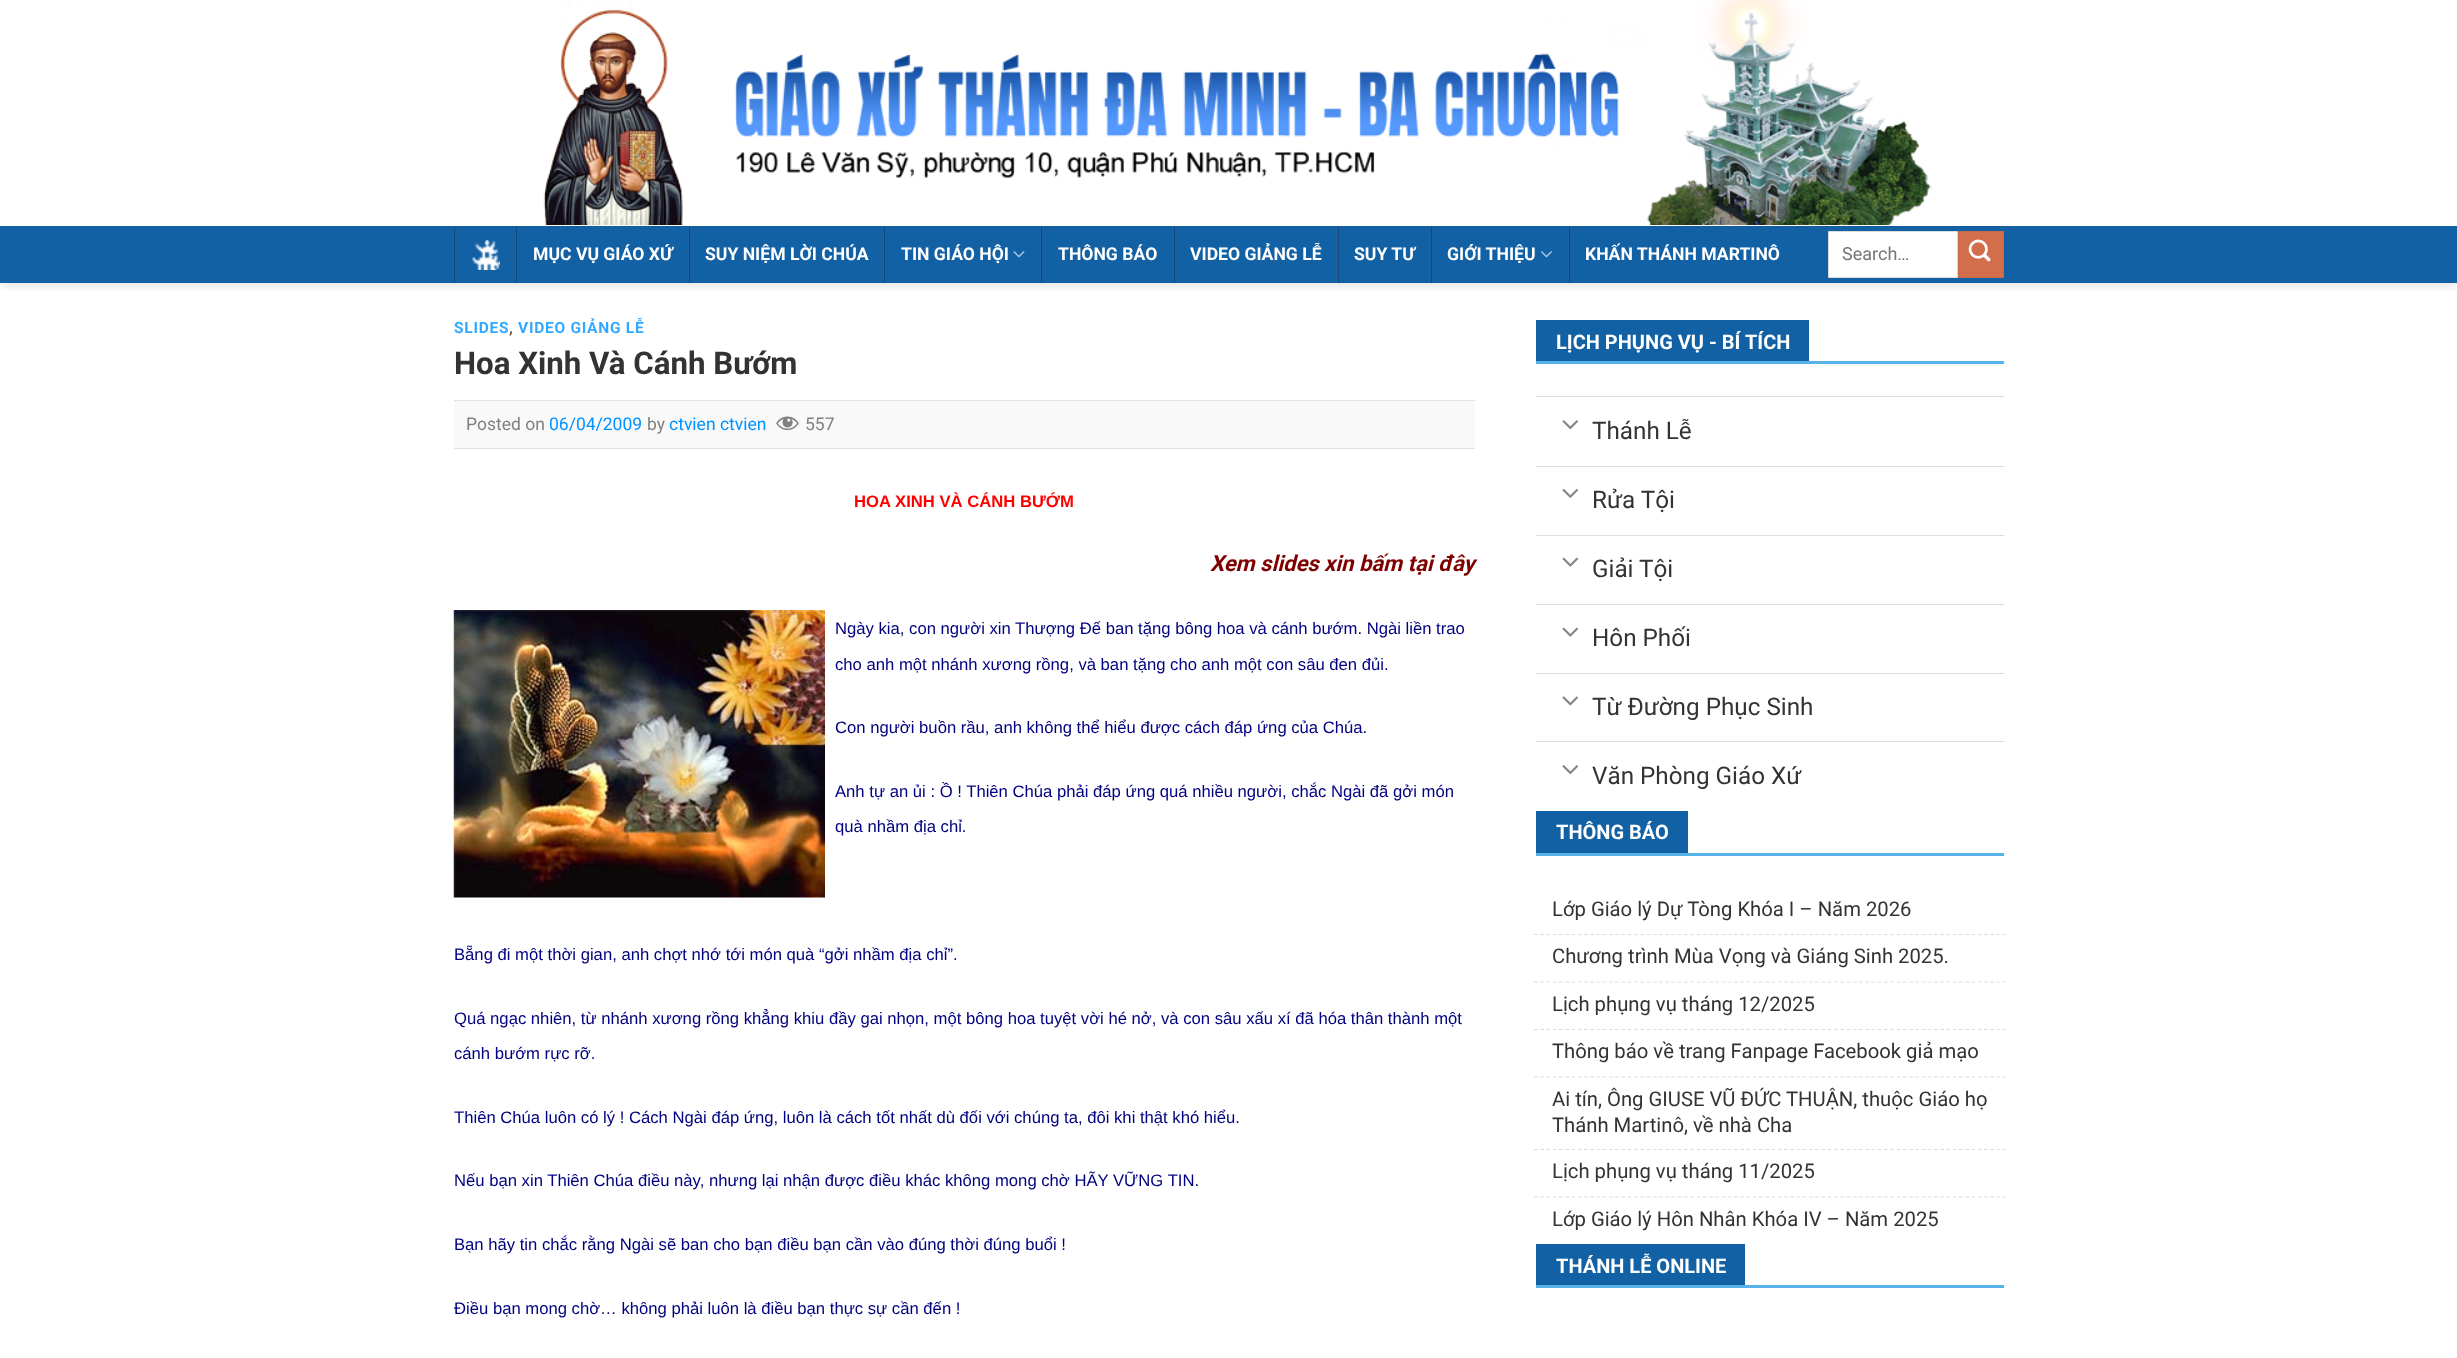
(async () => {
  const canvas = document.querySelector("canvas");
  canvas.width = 2457;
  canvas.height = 1358;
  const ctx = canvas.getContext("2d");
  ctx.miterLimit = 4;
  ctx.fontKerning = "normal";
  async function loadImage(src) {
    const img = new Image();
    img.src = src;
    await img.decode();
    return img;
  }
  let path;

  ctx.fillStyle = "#ffffff";
  ctx.fillRect(0, 0, 2457, 1358);
  ctx.save();
  ctx.beginPath();
  ctx.rect(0, 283, 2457, 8);
  ctx.clip();
  ctx.fillStyle = "rgba(0, 0, 0, 0.15)";
  ctx.filter = "blur(6px)";
  ctx.beginPath();
  ctx.rect(1, 1, 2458, 283);
  ctx.fill();
  ctx.filter = "none";
  ctx.restore();
  ctx.drawImage(await loadImage("img/1.png"), 543, 0, 1390, 225);
  for (const [x, y, w, h, color] of [
    [0, 226, 2457, 57, "#1361a5"],
    [454, 226, 1550, 1, "#165c9a"],
    [515, 228, 1, 55, "#1d609e"],
    [454, 228, 1, 55, "#114a7f"],
  ]) {
    ctx.fillStyle = color;
    ctx.fillRect(x, y, w, h);
  }
  ctx.drawImage(await loadImage("img/2.png"), 471, 240, 29, 30);
  for (const [x, y, w, h, color] of [
    [688, 226, 1, 57, "#1d609e"],
    [688, 226, 1, 1, "#1f5c93"],
    [516, 226, 1, 57, "#114a7f"],
    [516, 226, 1, 1, "#144877"],
    [883, 226, 1, 57, "#1d609e"],
    [883, 226, 1, 1, "#1f5c93"],
    [689, 226, 1, 57, "#114a7f"],
    [689, 226, 1, 1, "#144877"],
    [1040, 226, 1, 57, "#1d609e"],
    [1040, 226, 1, 1, "#1f5c93"],
    [884, 226, 1, 57, "#114a7f"],
    [884, 226, 1, 1, "#144877"],
  ]) {
    ctx.fillStyle = color;
    ctx.fillRect(x, y, w, h);
  }
  ctx.drawImage(await loadImage("img/3.png"), 1013, 251, 12, 7);
  for (const [x, y, w, h, color] of [
    [1173, 226, 1, 57, "#1d609e"],
    [1173, 226, 1, 1, "#1f5c93"],
    [1041, 226, 1, 57, "#114a7f"],
    [1041, 226, 1, 1, "#144877"],
    [1336, 226, 1, 57, "#1d609e"],
    [1336, 226, 1, 1, "#1f5c93"],
    [1174, 226, 1, 57, "#114a7f"],
    [1174, 226, 1, 1, "#144877"],
    [1430, 226, 1, 57, "#1d609e"],
    [1430, 226, 1, 1, "#1f5c93"],
    [1338, 226, 1, 57, "#114a7f"],
    [1338, 226, 1, 1, "#144877"],
    [1568, 226, 1, 57, "#1d609e"],
    [1568, 226, 1, 1, "#1f5c93"],
    [1431, 226, 1, 57, "#114a7f"],
    [1431, 226, 1, 1, "#144877"],
  ]) {
    ctx.fillStyle = color;
    ctx.fillRect(x, y, w, h);
  }
  ctx.drawImage(await loadImage("img/4.png"), 1541, 251, 11, 7);
  for (const [x, y, w, h, color] of [
    [1795, 226, 1, 57, "#1d609e"],
    [1795, 226, 1, 1, "#1f5c93"],
    [1569, 226, 1, 57, "#114a7f"],
    [1569, 226, 1, 1, "#144877"],
  ]) {
    ctx.fillStyle = color;
    ctx.fillRect(x, y, w, h);
  }
  ctx.fillStyle = "#ffffff";
  ctx.beginPath();
  ctx.rect(1828.5, 231.5, 129, 46);
  ctx.fill();
  ctx.strokeStyle = "#dddddd";
  ctx.stroke();
  ctx.fillStyle = "#d26e4b";
  ctx.beginPath();
  ctx.rect(1958.5, 231.5, 45, 46);
  ctx.fill();
  ctx.strokeStyle = "#c86947";
  ctx.stroke();
  ctx.drawImage(await loadImage("img/5.png"), 1968, 239, 23, 23);
  for (const [x, y, w, h, color] of [
    [454, 401, 1021, 47, "#f9f9f9"],
    [454, 400, 1021, 1, "#e2e2e2"],
    [454, 448, 1021, 1, "#e2e2e2"],
  ]) {
    ctx.fillStyle = color;
    ctx.fillRect(x, y, w, h);
  }
  ctx.drawImage(await loadImage("img/6.png"), 776, 416, 23, 15);
  ctx.drawImage(await loadImage("img/7.png"), 453, 610, 372, 288);
  for (const [x, y, w, h, color] of [
    [1536, 361, 468, 3, "#57b2e9"],
    [1536, 320, 273, 41, "#1261a5"],
    [1536, 396, 468, 1, "#dddddd"],
  ]) {
    ctx.fillStyle = color;
    ctx.fillRect(x, y, w, h);
  }
  ctx.drawImage(await loadImage("img/8.png"), 1562, 420, 17, 10);
  ctx.fillRect(1536, 466, 468, 1);
  ctx.drawImage(await loadImage("img/9.png"), 1562, 488, 17, 10);
  ctx.fillRect(1536, 535, 468, 1);
  ctx.drawImage(await loadImage("img/10.png"), 1562, 557, 17, 10);
  ctx.fillRect(1536, 604, 468, 1);
  ctx.drawImage(await loadImage("img/10.png"), 1562, 627, 17, 10);
  ctx.fillRect(1536, 673, 468, 1);
  ctx.drawImage(await loadImage("img/11.png"), 1562, 696, 17, 10);
  ctx.fillRect(1536, 741, 468, 1);
  ctx.drawImage(await loadImage("img/8.png"), 1562, 765, 17, 10);
  ctx.fillStyle = "#57b2e9";
  ctx.fillRect(1536, 853, 468, 3);
  ctx.fillStyle = "#1261a5";
  ctx.fillRect(1536, 811, 152, 42);
  path = new Path2D("M1534 934.5H2006");
  ctx.strokeStyle = "#dddddd";
  ctx.lineWidth = 1.2;
  ctx.setLineDash([3.75, 2.5]);
  ctx.stroke(path);
  path = new Path2D("M1534 982H2006");
  ctx.stroke(path);
  path = new Path2D("M1534 1029.5H2006");
  ctx.stroke(path);
  path = new Path2D("M1534 1077H2006");
  ctx.stroke(path);
  path = new Path2D("M1534 1149.5H2006");
  ctx.stroke(path);
  path = new Path2D("M1534 1197H2006");
  ctx.stroke(path);
  ctx.fillStyle = "#57b2e9";
  ctx.fillRect(1536, 1285, 468, 3);
  ctx.fillStyle = "#1261a5";
  ctx.fillRect(1536, 1244, 209, 41);
  ctx.font = "bold 17.6px Roboto";
  ctx.fillStyle = "#ffffff";
  for (const [text, x, y] of [
    ["MỤC VỤ GIÁO XỨ", 533, 260],
    ["SUY NIỆM LỜI CHÚA", 705, 260],
    ["TIN GIÁO HỘI", 901, 260],
    ["THÔNG BÁO", 1058, 260],
    ["VIDEO GIẢNG LỄ", 1190, 260],
    ["SUY TƯ", 1354, 260],
    ["GIỚI THIỆU", 1447, 260],
    ["KHẤN THÁNH MARTINÔ", 1585, 260],
  ]) {
    ctx.fillText(text, x, y);
  }
  ctx.font = "18px Roboto";
  ctx.fillStyle = "#757575";
  ctx.fillText("Search…", 1842, 260);
  ctx.letterSpacing = "0.75px";
  ctx.font = "bold 15.5px Roboto";
  ctx.fillStyle = "#33a8ff";
  ctx.fillText("SLIDES", 454, 333);
  ctx.fillStyle = "#5c5c5c";
  ctx.fillText(",", 509, 333);
  ctx.fillStyle = "#33a8ff";
  ctx.fillText("VIDEO GIẢNG LỄ", 518, 333);
  ctx.letterSpacing = "0px";
  ctx.font = "bold 31.25px Roboto";
  ctx.fillStyle = "#333333";
  ctx.fillText("Hoa Xinh Và Cánh Bướm", 454, 374);
  ctx.font = "17.5px Roboto";
  ctx.fillStyle = "#808080";
  ctx.fillText("Posted on", 466, 430);
  ctx.fillStyle = "#0092ff";
  ctx.fillText("06/04/2009", 549, 430);
  ctx.fillStyle = "#808080";
  ctx.fillText("by", 647, 430);
  ctx.fillStyle = "#0092ff";
  ctx.fillText("ctvien ctvien", 669, 430);
  ctx.fillStyle = "#808080";
  ctx.fillText("557", 805, 430);
  ctx.font = "bold 16.67px Liberation Sans";
  ctx.fillStyle = "#ff0000";
  ctx.fillText("HOA XINH VÀ CÁNH BƯỚM", 854, 507);
  ctx.font = "italic bold 22px Roboto";
  ctx.fillStyle = "#800000";
  ctx.fillText("Xem slides xin bấm tại đây", 1210, 571);
  ctx.font = "16.67px Liberation Sans";
  ctx.fillStyle = "#000080";
  for (const [text, x, y] of [
    ["Ngày kia, con người xin Thượng Đế ban tặng bông hoa và cánh bướm. Ngài liền trao", 835, 634],
    ["cho anh một nhánh xương rồng, và ban tặng cho anh một con sâu đen đủi.", 835, 670],
    ["Con người buồn rầu, anh không thể hiểu được cách đáp ứng của Chúa.", 835, 733],
    ["Anh tự an ủi : Ồ ! Thiên Chúa phải đáp ứng quá nhiều người, chắc Ngài đã gởi món", 835, 797],
    ["quà nhầm địa chỉ.", 835, 832],
    ["Bẵng đi một thời gian, anh chợt nhớ tới món quà “gởi nhầm địa chỉ”.", 454, 960],
    ["Quá ngạc nhiên, từ nhánh xương rồng khẳng khiu đầy gai nhọn, một bông hoa tuyệt vời hé nở, và con sâu xấu xí đã hóa thân thành một", 454, 1024],
    ["cánh bướm rực rỡ.", 454, 1059],
    ["Thiên Chúa luôn có lý ! Cách Ngài đáp ứng, luôn là cách tốt nhất dù đối với chúng ta, đôi khi thật khó hiểu.", 454, 1123],
    ["Nếu bạn xin Thiên Chúa điều này, nhưng lại nhận được điều khác không mong chờ HÃY VỮNG TIN.", 454, 1186],
    ["Bạn hãy tin chắc rằng Ngài sẽ ban cho bạn điều bạn cần vào đúng thời đúng buổi !", 454, 1250],
    ["Điều bạn mong chờ… không phải luôn là điều bạn thực sự cần đến !", 454, 1314],
  ]) {
    ctx.fillText(text, x, y);
  }
  ctx.font = "bold 20px Roboto";
  ctx.fillStyle = "#ffffff";
  ctx.fillText("LỊCH PHỤNG VỤ - BÍ TÍCH", 1556, 349);
  ctx.font = "24.25px Roboto";
  ctx.fillStyle = "#333333";
  for (const [text, x, y] of [
    ["Thánh Lễ", 1592, 439],
    ["Rửa Tội", 1592, 508],
    ["Giải Tội", 1592, 577],
    ["Hôn Phối", 1592, 646],
    ["Từ Đường Phục Sinh", 1592, 715],
    ["Văn Phòng Giáo Xứ", 1592, 784],
  ]) {
    ctx.fillText(text, x, y);
  }
  ctx.font = "bold 20px Roboto";
  ctx.fillStyle = "#ffffff";
  ctx.fillText("THÔNG BÁO", 1556, 839);
  ctx.font = "20.25px Roboto";
  ctx.fillStyle = "#333333";
  for (const [text, x, y] of [
    ["Lớp Giáo lý Dự Tòng Khóa I – Năm 2026", 1552, 916],
    ["Chương trình Mùa Vọng và Giáng Sinh 2025.", 1552, 963],
    ["Lịch phụng vụ tháng 12/2025", 1552, 1011],
    ["Thông báo về trang Fanpage Facebook giả mạo", 1552, 1058],
    ["Ai tín, Ông GIUSE VŨ ĐỨC THUẬN, thuộc Giáo họ", 1552, 1106],
    ["Thánh Martinô, về nhà Cha", 1552, 1132],
    ["Lịch phụng vụ tháng 11/2025", 1552, 1178],
    ["Lớp Giáo lý Hôn Nhân Khóa IV – Năm 2025", 1552, 1226],
  ]) {
    ctx.fillText(text, x, y);
  }
  ctx.font = "bold 20px Roboto";
  ctx.fillStyle = "#ffffff";
  ctx.fillText("THÁNH LỄ ONLINE", 1556, 1273);
})();
